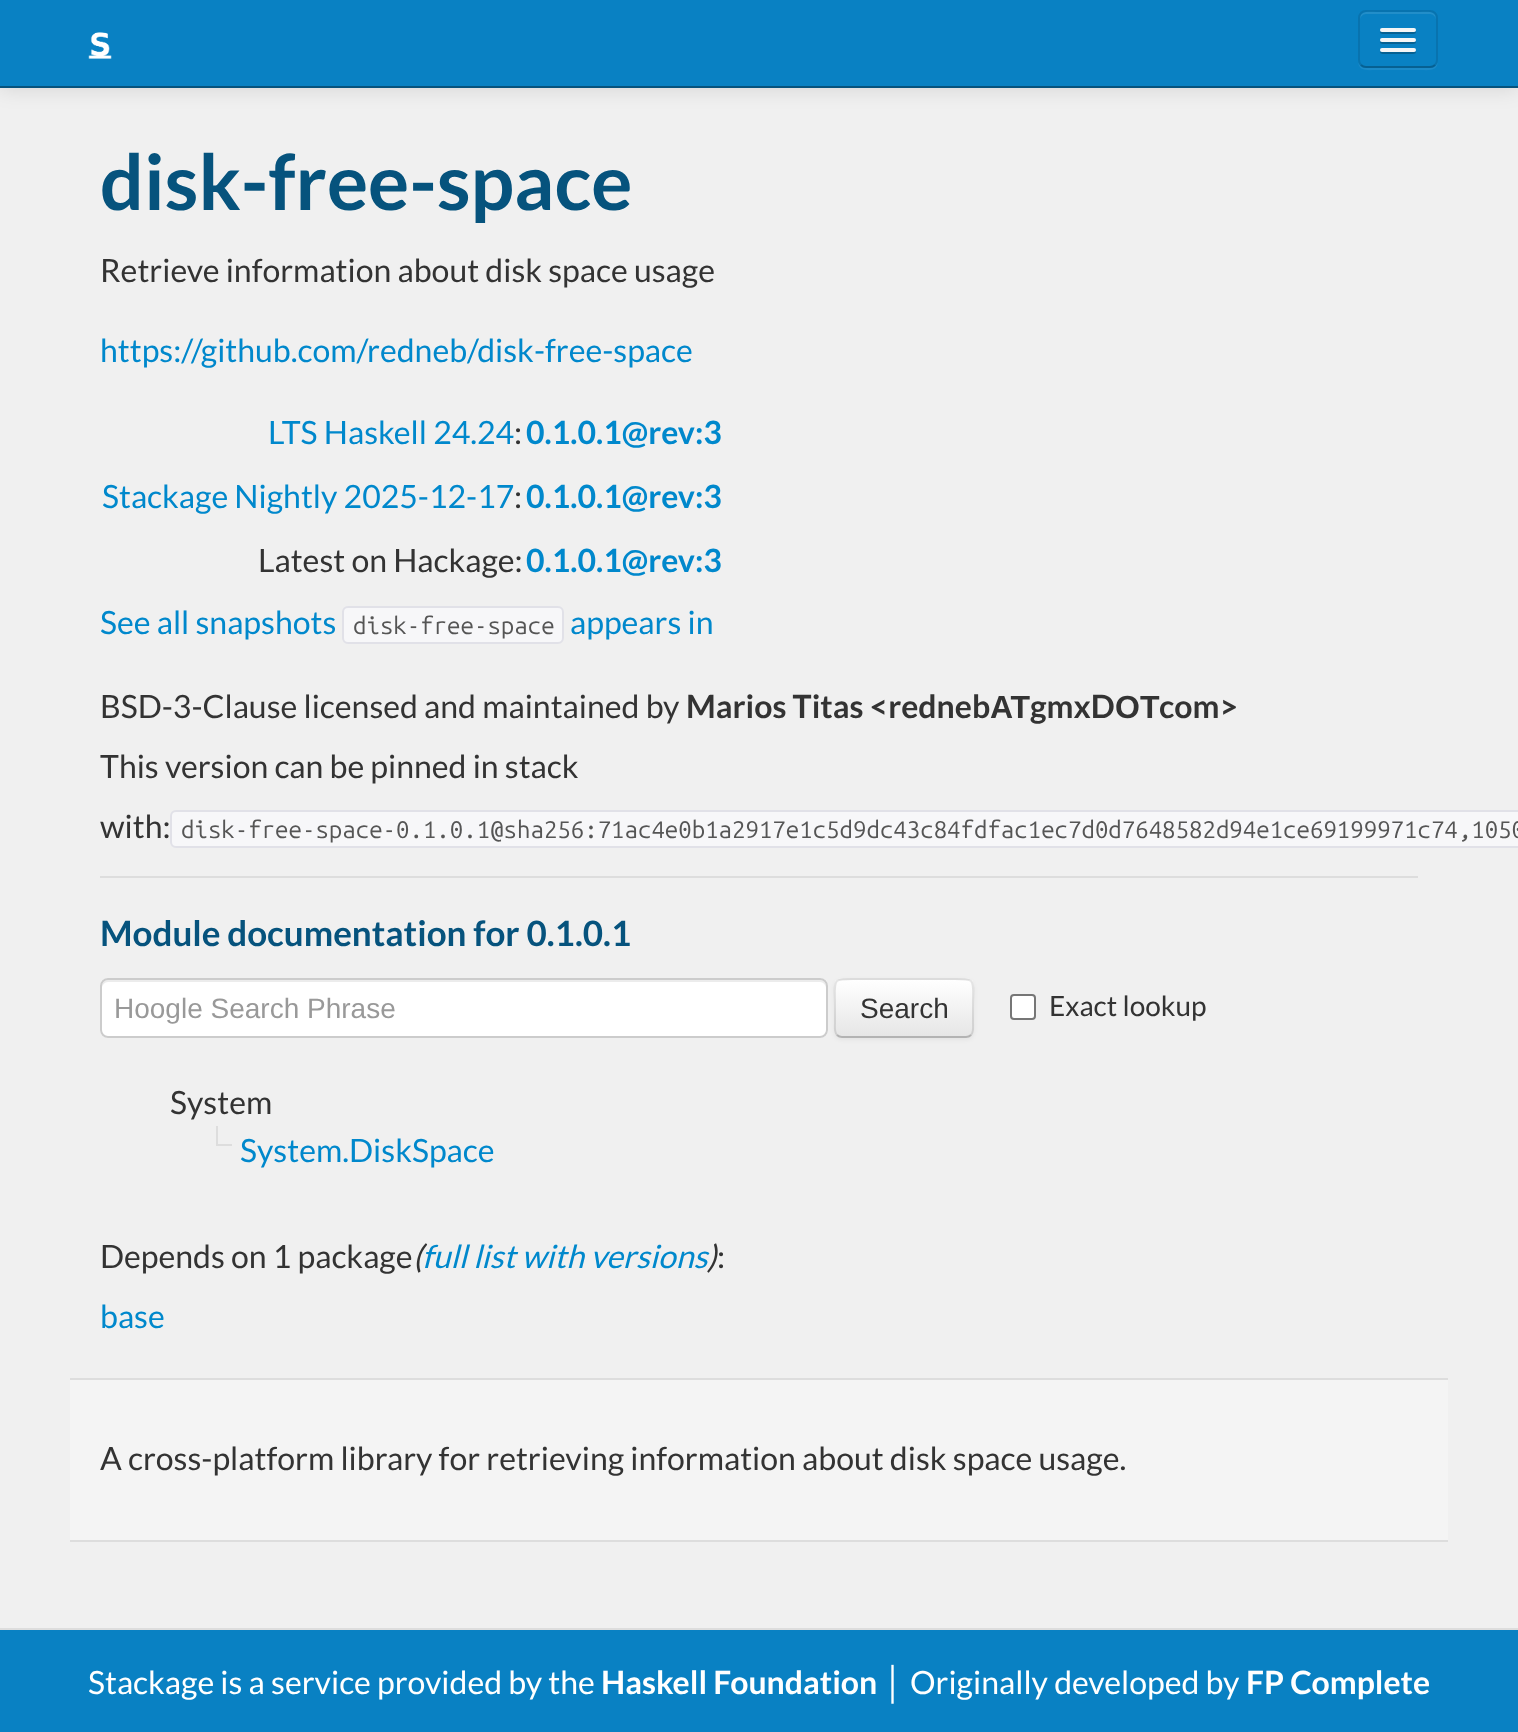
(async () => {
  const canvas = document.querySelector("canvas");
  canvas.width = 1518;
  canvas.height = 1732;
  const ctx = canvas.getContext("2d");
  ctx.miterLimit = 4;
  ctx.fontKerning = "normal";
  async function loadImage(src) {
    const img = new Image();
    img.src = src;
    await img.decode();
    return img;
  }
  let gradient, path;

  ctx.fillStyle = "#f0f0f0";
  ctx.fillRect(0, 0, 1518, 1732);
  ctx.fillStyle = "rgba(0, 0, 0, 0.1)";
  ctx.filter = "blur(10px)";
  ctx.beginPath();
  ctx.rect(0, 2, 1518, 88);
  ctx.fill();
  ctx.filter = "none";
  ctx.fillStyle = "#0981c3";
  ctx.fillRect(0, 0, 1518, 86);
  ctx.fillStyle = "#06537d";
  ctx.fillRect(0, 86, 1518, 2);
  ctx.drawImage(await loadImage("img/1.png"), 88, 32, 24, 27);
  ctx.fillStyle = "#1b8ac8";
  path = new Path2D("M1358 60C1358 72 1367 70 1377 70H1419C1429 70 1438 72 1438 60C1438 64 1434 68 1430 68H1366C1362 68 1358 64 1358 60Z");
  ctx.fill(path);
  ctx.fillStyle = "#0981c3";
  ctx.beginPath();
  ctx.roundRect(1358, 10, 80, 58, 8);
  ctx.fill();
  ctx.fillStyle = "#228ec9";
  path = new Path2D("M1366 14H1430C1433 14 1436 17 1436 20C1436 10 1428 12 1419 12H1377C1368 12 1360 10 1360 20C1360 17 1363 14 1366 14Z");
  ctx.fill(path);
  path = new Path2D("M1435 65C1433.5 66.5 1432 67 1430 67H1366C1364 67 1362.5 66.5 1361 65");
  ctx.strokeStyle = "rgba(0, 0, 0, 0.25)";
  ctx.lineWidth = 2;
  ctx.stroke(path);
  path = new Path2D("M1361 65C1359.5 63.5 1359 62 1359 60V18C1359 16 1359.5 14.5 1361 13C1362.5 11.5 1364 11 1366 11H1430C1432 11 1433.5 11.5 1435 13C1436.5 14.5 1437 16 1437 18V60C1437 62 1436.5 63.5 1435 65");
  ctx.strokeStyle = "rgba(0, 0, 0, 0.1)";
  ctx.stroke(path);
  ctx.fillStyle = "#076192";
  path = new Path2D("M1380.5 31C1378 35 1387 34 1387.5 34H1408.5C1409 34 1418 35 1415.5 31C1415.5 31.5 1414.5 32 1414 32H1382C1381.5 32 1380.5 31.5 1380.5 31Z");
  ctx.fill(path);
  ctx.fillStyle = "#f5f5f5";
  ctx.beginPath();
  ctx.roundRect(1380, 28, 36, 4, 2);
  ctx.fill();
  ctx.fillStyle = "#076192";
  path = new Path2D("M1380.5 41C1378 45 1387 44 1387.5 44H1408.5C1409 44 1418 45 1415.5 41C1415.5 41.5 1414.5 42 1414 42H1382C1381.5 42 1380.5 41.5 1380.5 41Z");
  ctx.fill(path);
  ctx.fillStyle = "#f5f5f5";
  ctx.beginPath();
  ctx.roundRect(1380, 38, 36, 4, 2);
  ctx.fill();
  ctx.fillStyle = "#076192";
  path = new Path2D("M1380.5 51C1378 55 1387 54 1387.5 54H1408.5C1409 54 1418 55 1415.5 51C1415.5 51.5 1414.5 52 1414 52H1382C1381.5 52 1380.5 51.5 1380.5 51Z");
  ctx.fill(path);
  ctx.fillStyle = "#f5f5f5";
  ctx.beginPath();
  ctx.roundRect(1380, 48, 36, 4, 2);
  ctx.fill();
  ctx.fillStyle = "#f7f7f9";
  ctx.beginPath();
  ctx.roundRect(343, 607, 220, 36, 5);
  ctx.fill();
  ctx.strokeStyle = "#e1e1e8";
  ctx.stroke();
  ctx.beginPath();
  ctx.roundRect(171, 811, 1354, 36, 5);
  ctx.fill();
  ctx.stroke();
  ctx.fillStyle = "#dddddd";
  ctx.fillRect(100, 876, 1318, 2);
  ctx.fillStyle = "#ffffff";
  ctx.beginPath();
  ctx.roundRect(100, 978, 728, 60, 8);
  ctx.fill();
  ctx.fillStyle = "#ececec";
  path = new Path2D("M108 982H820C823 982 826 985 826 988V986C826 983 823 980 820 980H108C105 980 102 983 102 986V988C102 985 105 982 108 982Z");
  ctx.fill(path);
  ctx.beginPath();
  ctx.roundRect(101, 979, 726, 58, 7);
  ctx.strokeStyle = "#cccccc";
  ctx.stroke();
  ctx.fillStyle = "rgba(0, 0, 0, 0.05)";
  ctx.filter = "blur(2px)";
  ctx.beginPath();
  ctx.roundRect(834, 980, 140, 60, 8);
  ctx.fill();
  ctx.filter = "none";
  ctx.fillStyle = "#f5f5f5";
  ctx.beginPath();
  ctx.roundRect(834, 978, 140, 60, 8);
  ctx.fill();
  ctx.save();
  ctx.beginPath();
  ctx.roundRect(834, 978, 140, 60, 8);
  ctx.clip();
  gradient = ctx.createLinearGradient(904, 980, 904, 1036);
  gradient.addColorStop(0, "#ffffff");
  gradient.addColorStop(1, "#e6e6e6");
  ctx.fillStyle = gradient;
  ctx.fillRect(834, 980, 140, 56);
  ctx.restore();
  path = new Path2D("M971 1035C969.5 1036.5 968 1037 966 1037H842C840 1037 838.5 1036.5 837 1035");
  ctx.strokeStyle = "#b3b3b3";
  ctx.stroke(path);
  path = new Path2D("M837 1035C834 1032 835 1026.5 835 1022.5V1008C835 976 830 979 862.5 979H945.5C978 979 973 976 973 1008V1022.5C973 1026.5 974 1032 971 1035");
  ctx.strokeStyle = "rgba(0, 0, 0, 0.1)";
  ctx.stroke(path);
  ctx.fillStyle = "#ffffff";
  ctx.beginPath();
  ctx.roundRect(1011, 995, 24, 24, 3);
  ctx.fill();
  ctx.strokeStyle = "#767676";
  ctx.stroke();
  for (const [x, y, w, h, color] of [
    [216, 1126, 2, 18, "#dddddd"],
    [216, 1144, 16, 2, "#dddddd"],
    [70, 1380, 1378, 160, "#f4f4f4"],
    [70, 1378, 1378, 2, "#dddddd"],
    [70, 1540, 1378, 2, "#dddddd"],
    [0, 1630, 1518, 102, "#0981c3"],
    [0, 1628, 1518, 2, "#dddddd"],
  ]) {
    ctx.fillStyle = color;
    ctx.fillRect(x, y, w, h);
  }
  ctx.font = "bold 77px Lato";
  ctx.fillStyle = "#06537d";
  ctx.fillText("disk-free-space", 100, 210);
  ctx.font = "32px Lato";
  ctx.fillStyle = "#333333";
  ctx.fillText("Retrieve information about disk space usage", 100, 282);
  ctx.fillStyle = "#0088cc";
  ctx.fillText("https://github.com/redneb/disk-free-space", 100, 362);
  ctx.fillText("LTS Haskell 24.24", 268, 444);
  ctx.fillStyle = "#333333";
  ctx.fillText(":", 514, 444);
  ctx.font = "bold 32px Lato";
  ctx.fillStyle = "#0088cc";
  ctx.fillText("0.1.0.1@rev:3", 526, 444);
  ctx.font = "32px Lato";
  ctx.fillText("Stackage Nightly 2025-12-17", 102, 508);
  ctx.fillStyle = "#333333";
  ctx.fillText(":", 514, 508);
  ctx.font = "bold 32px Lato";
  ctx.fillStyle = "#0088cc";
  ctx.fillText("0.1.0.1@rev:3", 526, 508);
  ctx.font = "32px Lato";
  ctx.fillStyle = "#333333";
  ctx.fillText("Latest on Hackage:", 258, 572);
  ctx.font = "bold 32px Lato";
  ctx.fillStyle = "#0088cc";
  ctx.fillText("0.1.0.1@rev:3", 526, 572);
  ctx.font = "32px Lato";
  ctx.fillText("See all snapshots", 100, 634);
  ctx.font = "24px Ubuntu Mono";
  ctx.fillStyle = "#555555";
  ctx.fillText("disk-free-space", 353, 634);
  ctx.font = "32px Lato";
  ctx.fillStyle = "#0088cc";
  ctx.fillText("appears in", 570, 634);
  ctx.fillStyle = "#333333";
  ctx.fillText("BSD-3-Clause licensed and maintained by", 100, 718);
  ctx.font = "bold 32px Lato";
  ctx.fillText("Marios Titas <redneb", 686, 718);
  ctx.font = "bold 32px Liberation Sans";
  ctx.fillText("ΑΤ", 990, 718);
  ctx.font = "bold 32px Lato";
  ctx.fillText("gmxD", 1030, 718);
  ctx.font = "bold 32px Liberation Sans";
  ctx.fillText("ΟΤ", 1115, 718);
  ctx.font = "bold 32px Lato";
  ctx.fillText("com>", 1159, 718);
  ctx.font = "32px Lato";
  ctx.fillText("This version can be pinned in stack", 100, 778);
  ctx.fillText("with:", 100, 838);
  ctx.font = "24px Ubuntu Mono";
  ctx.fillStyle = "#555555";
  ctx.fillText("disk-free-space-0.1.0.1@sha256:71ac4e0b1a2917e1c5d9dc43c84fdfac1ec7d0d7648582d94e1ce69199971c74,1050", 181, 838);
  ctx.font = "bold 35px Lato";
  ctx.fillStyle = "#06537d";
  ctx.fillText("Module documentation for 0.1.0.1", 100, 946);
  ctx.font = "28px Liberation Sans";
  ctx.fillStyle = "#999999";
  ctx.fillText("Hoogle Search Phrase", 114, 1018);
  ctx.fillStyle = "#333333";
  ctx.fillText("Search", 860, 1018);
  ctx.font = "28px Lato";
  ctx.fillText("Exact lookup", 1049, 1016);
  ctx.font = "32px Lato";
  ctx.fillText("System", 170, 1114);
  ctx.fillStyle = "#0088cc";
  ctx.fillText("System.DiskSpace", 240, 1162);
  ctx.fillStyle = "#333333";
  ctx.fillText("Depends on 1 package", 100, 1268);
  ctx.font = "italic 32px Lato";
  ctx.fillText("(", 413, 1268);
  ctx.fillStyle = "#0088cc";
  ctx.fillText("full list with versions", 422, 1268);
  ctx.fillStyle = "#333333";
  ctx.fillText(")", 707, 1268);
  ctx.font = "32px Lato";
  ctx.fillText(":", 717, 1268);
  ctx.fillStyle = "#0088cc";
  ctx.fillText("base", 100, 1328);
  ctx.fillStyle = "#333333";
  ctx.fillText("A cross-platform library for retrieving information about disk space usage.", 100, 1470);
  ctx.fillStyle = "#ffffff";
  ctx.fillText("Stackage is a service provided by the", 88, 1694);
  ctx.font = "bold 32px Lato";
  ctx.fillText("Haskell Foundation", 601, 1694);
  ctx.font = "32px Liberation Sans";
  ctx.fillText("│", 884, 1694);
  ctx.font = "32px Lato";
  ctx.fillText("Originally developed by", 910, 1694);
  ctx.font = "bold 32px Lato";
  ctx.fillText("FP Complete", 1246, 1694);
})();
